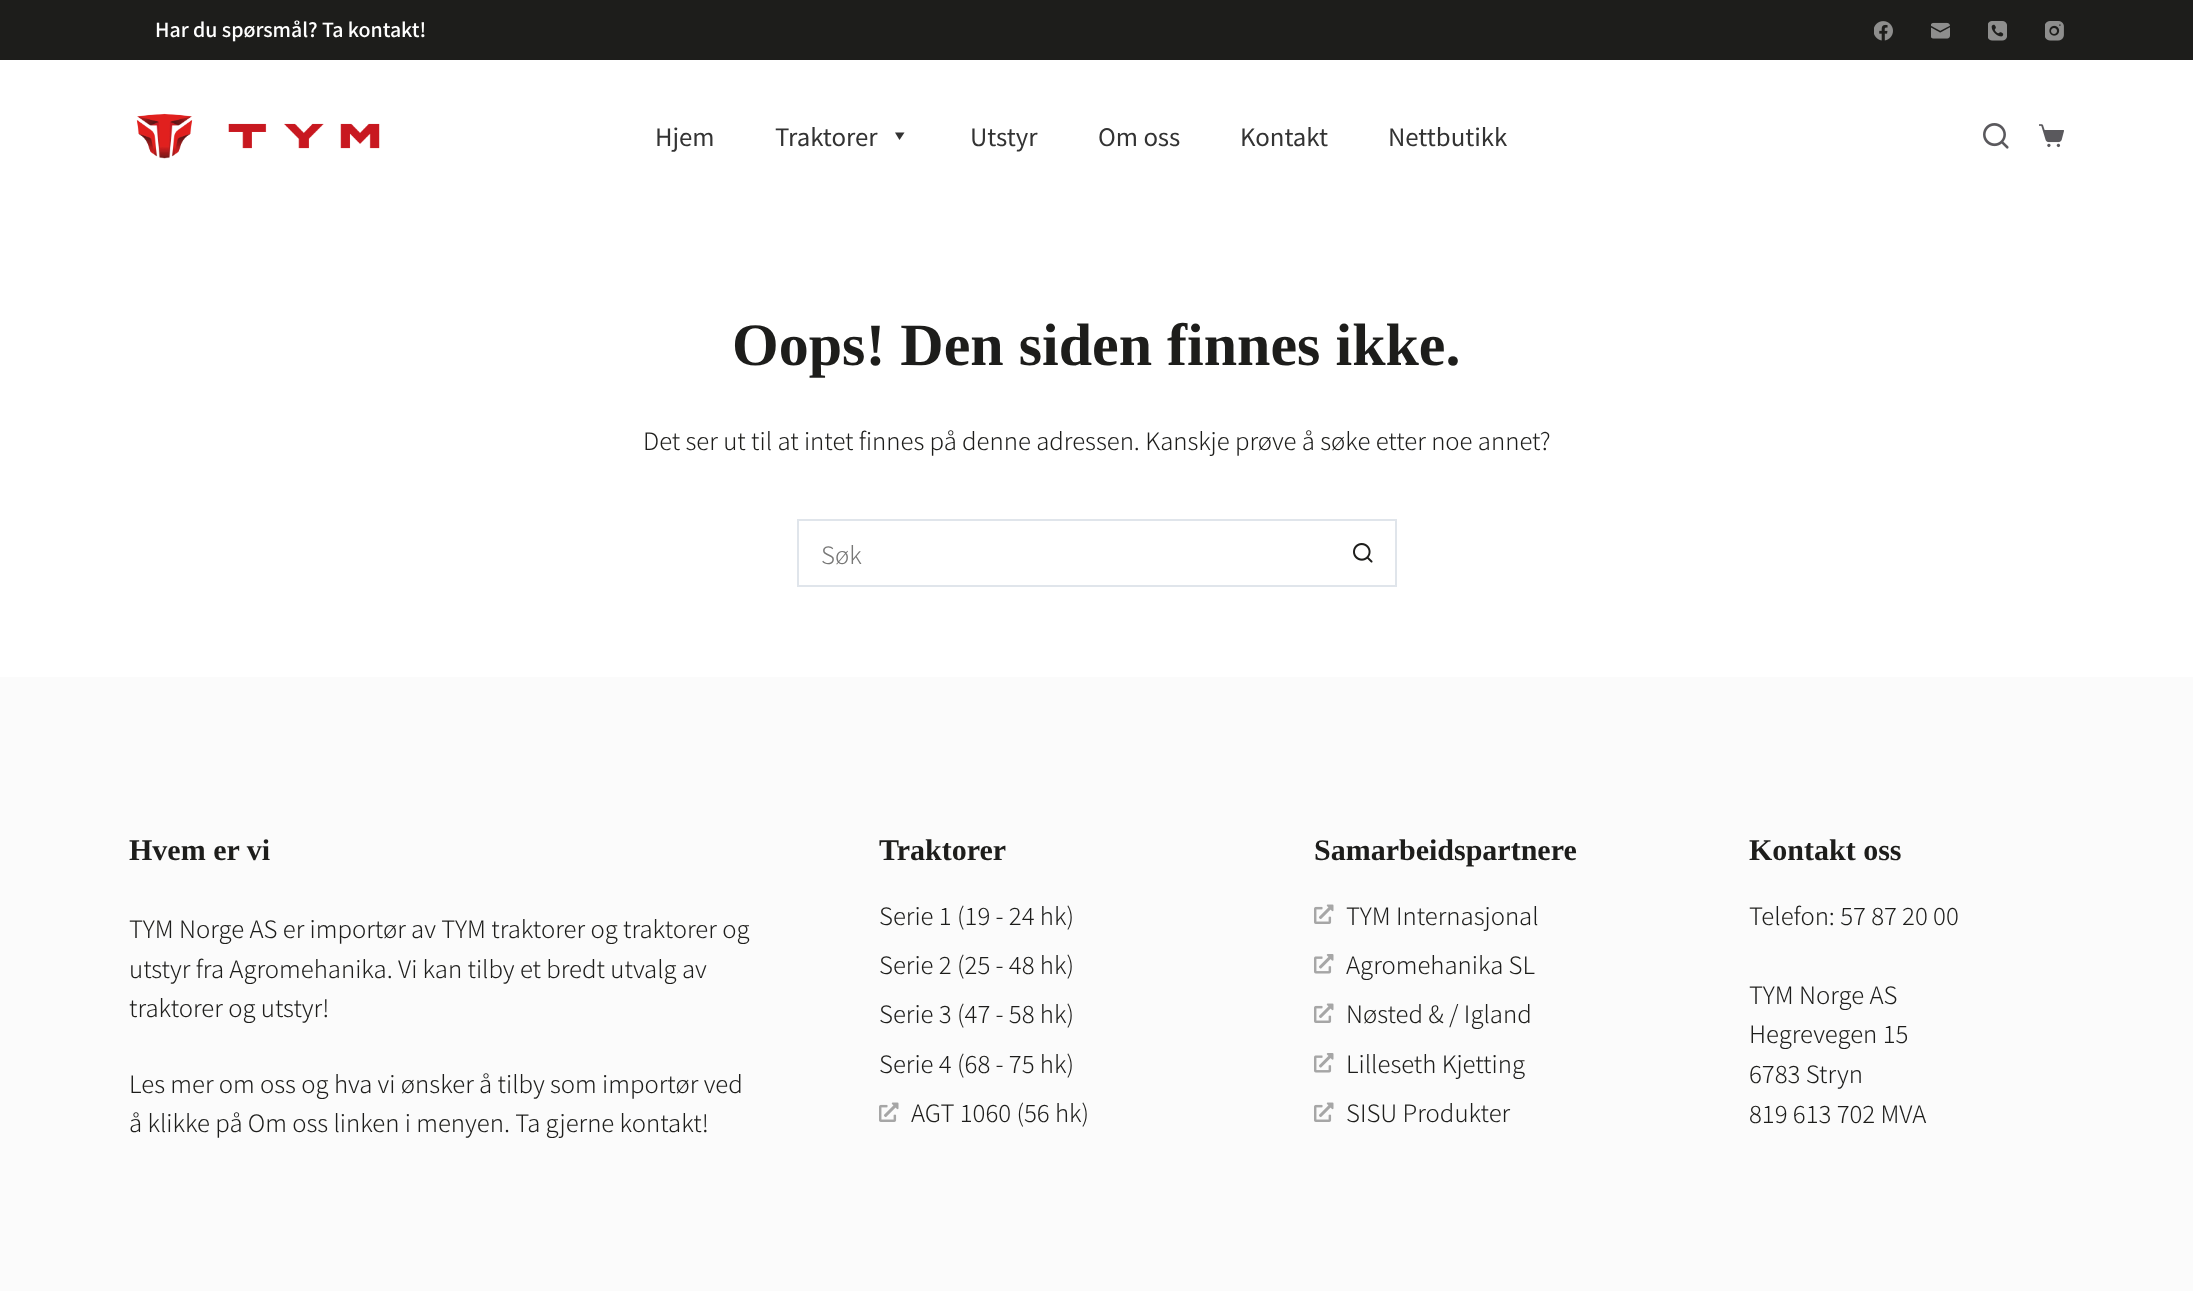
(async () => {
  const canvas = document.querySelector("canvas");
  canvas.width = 2193;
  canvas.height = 1291;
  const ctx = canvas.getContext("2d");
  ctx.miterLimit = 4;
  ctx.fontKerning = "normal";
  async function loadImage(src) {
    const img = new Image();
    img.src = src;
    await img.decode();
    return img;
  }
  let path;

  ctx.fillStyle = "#ffffff";
  ctx.fillRect(0, 0, 2193, 1291);
  ctx.fillStyle = "#1d1d1b";
  ctx.fillRect(0, 0, 2193, 60);
  ctx.drawImage(await loadImage("img/1.png"), 1874, 21, 19, 20);
  ctx.drawImage(await loadImage("img/2.png"), 1931, 22, 19, 17);
  ctx.drawImage(await loadImage("img/3.png"), 1988, 21, 19, 20);
  ctx.drawImage(await loadImage("img/4.png"), 2045, 21, 19, 20);
  ctx.drawImage(await loadImage("img/5.png"), 136, 113, 244, 46);
  ctx.fillStyle = "#333333";
  path = new Path2D("M904.5 132.5L899.5 140L895 132.5Z");
  ctx.fill(path);
  ctx.drawImage(await loadImage("img/6.png"), 1983, 123, 26, 26);
  ctx.drawImage(await loadImage("img/7.png"), 2039, 124, 25, 24);
  for (const [x, y, w, h, color] of [
    [797, 519, 600, 2, "#e0e5eb"],
    [797, 585, 532, 2, "#e0e5eb"],
    [797, 519, 2, 68, "#e0e5eb"],
    [1395, 519, 2, 68, "#e0e5eb"],
    [1329, 585, 68, 2, "#e0e5eb"],
  ]) {
    ctx.fillStyle = color;
    ctx.fillRect(x, y, w, h);
  }
  ctx.drawImage(await loadImage("img/8.png"), 1353, 543, 20, 20);
  ctx.fillStyle = "#fbfbfb";
  ctx.fillRect(0, 677, 2193, 614);
  ctx.drawImage(await loadImage("img/9.png"), 879, 1102, 20, 20);
  ctx.drawImage(await loadImage("img/9.png"), 1314, 904, 20, 20);
  ctx.drawImage(await loadImage("img/10.png"), 1314, 954, 20, 20);
  ctx.drawImage(await loadImage("img/9.png"), 1314, 1003, 20, 20);
  ctx.drawImage(await loadImage("img/10.png"), 1314, 1053, 20, 20);
  ctx.drawImage(await loadImage("img/9.png"), 1314, 1102, 20, 20);
  ctx.font = "500 19.5px Noto Sans KR";
  ctx.fillStyle = "#ffffff";
  ctx.fillText("Har du spørsmål? Ta kontakt!", 155, 37);
  ctx.font = "24px Noto Sans KR";
  ctx.fillStyle = "#333333";
  for (const [text, x, y] of [
    ["Hjem", 655, 146],
    ["Traktorer", 775, 146],
    ["Utstyr", 970, 146],
    ["Om oss", 1098, 146],
    ["Kontakt", 1240, 146],
    ["Nettbutikk", 1388, 146],
  ]) {
    ctx.fillText(text, x, y);
  }
  ctx.font = "bold 60px Liberation Serif";
  ctx.fillStyle = "#1d1d1b";
  ctx.fillText("Oops! Den siden finnes ikke.", 732, 365);
  ctx.font = "300 24px Noto Sans KR";
  ctx.fillText("Det ser ut til at intet finnes på denne adressen. Kanskje prøve å søke etter noe annet?", 643, 450);
  ctx.fillStyle = "#777776";
  ctx.fillText("Søk", 821, 564);
  ctx.font = "bold 30px Liberation Serif";
  ctx.fillStyle = "#1d1d1b";
  ctx.fillText("Hvem er vi", 129, 860);
  ctx.font = "300 24px Noto Sans KR";
  for (const [text, x, y] of [
    ["TYM Norge AS er importør av TYM traktorer og traktorer og", 129, 938],
    ["utstyr fra Agromehanika. Vi kan tilby et bredt utvalg av", 129, 978],
    ["traktorer og utstyr!", 129, 1017],
    ["Les mer om oss og hva vi ønsker å tilby som importør ved", 129, 1093],
    ["å klikke på Om oss linken i menyen. Ta gjerne kontakt!", 129, 1132],
  ]) {
    ctx.fillText(text, x, y);
  }
  ctx.font = "bold 30px Liberation Serif";
  ctx.fillText("Traktorer", 879, 860);
  ctx.font = "300 24px Noto Sans KR";
  for (const [text, x, y] of [
    ["Serie 1 (19 - 24 hk)", 879, 925],
    ["Serie 2 (25 - 48 hk)", 879, 974],
    ["Serie 3 (47 - 58 hk)", 879, 1023],
    ["Serie 4 (68 - 75 hk)", 879, 1073],
    ["AGT 1060 (56 hk)", 911, 1122],
  ]) {
    ctx.fillText(text, x, y);
  }
  ctx.font = "bold 30px Liberation Serif";
  ctx.fillText("Samarbeidspartnere", 1314, 860);
  ctx.font = "300 24px Noto Sans KR";
  for (const [text, x, y] of [
    ["TYM Internasjonal", 1346, 925],
    ["Agromehanika SL", 1346, 974],
    ["Nøsted & / Igland", 1346, 1023],
    ["Lilleseth Kjetting", 1346, 1073],
    ["SISU Produkter", 1346, 1122],
  ]) {
    ctx.fillText(text, x, y);
  }
  ctx.font = "bold 30px Liberation Serif";
  ctx.fillText("Kontakt oss", 1749, 860);
  ctx.font = "300 24px Noto Sans KR";
  for (const [text, x, y] of [
    ["Telefon: 57 87 20 00", 1749, 925],
    ["TYM Norge AS", 1749, 1004],
    ["Hegrevegen 15", 1749, 1043],
    ["6783 Stryn", 1749, 1083],
    ["819 613 702 MVA", 1749, 1123],
  ]) {
    ctx.fillText(text, x, y);
  }
})();
